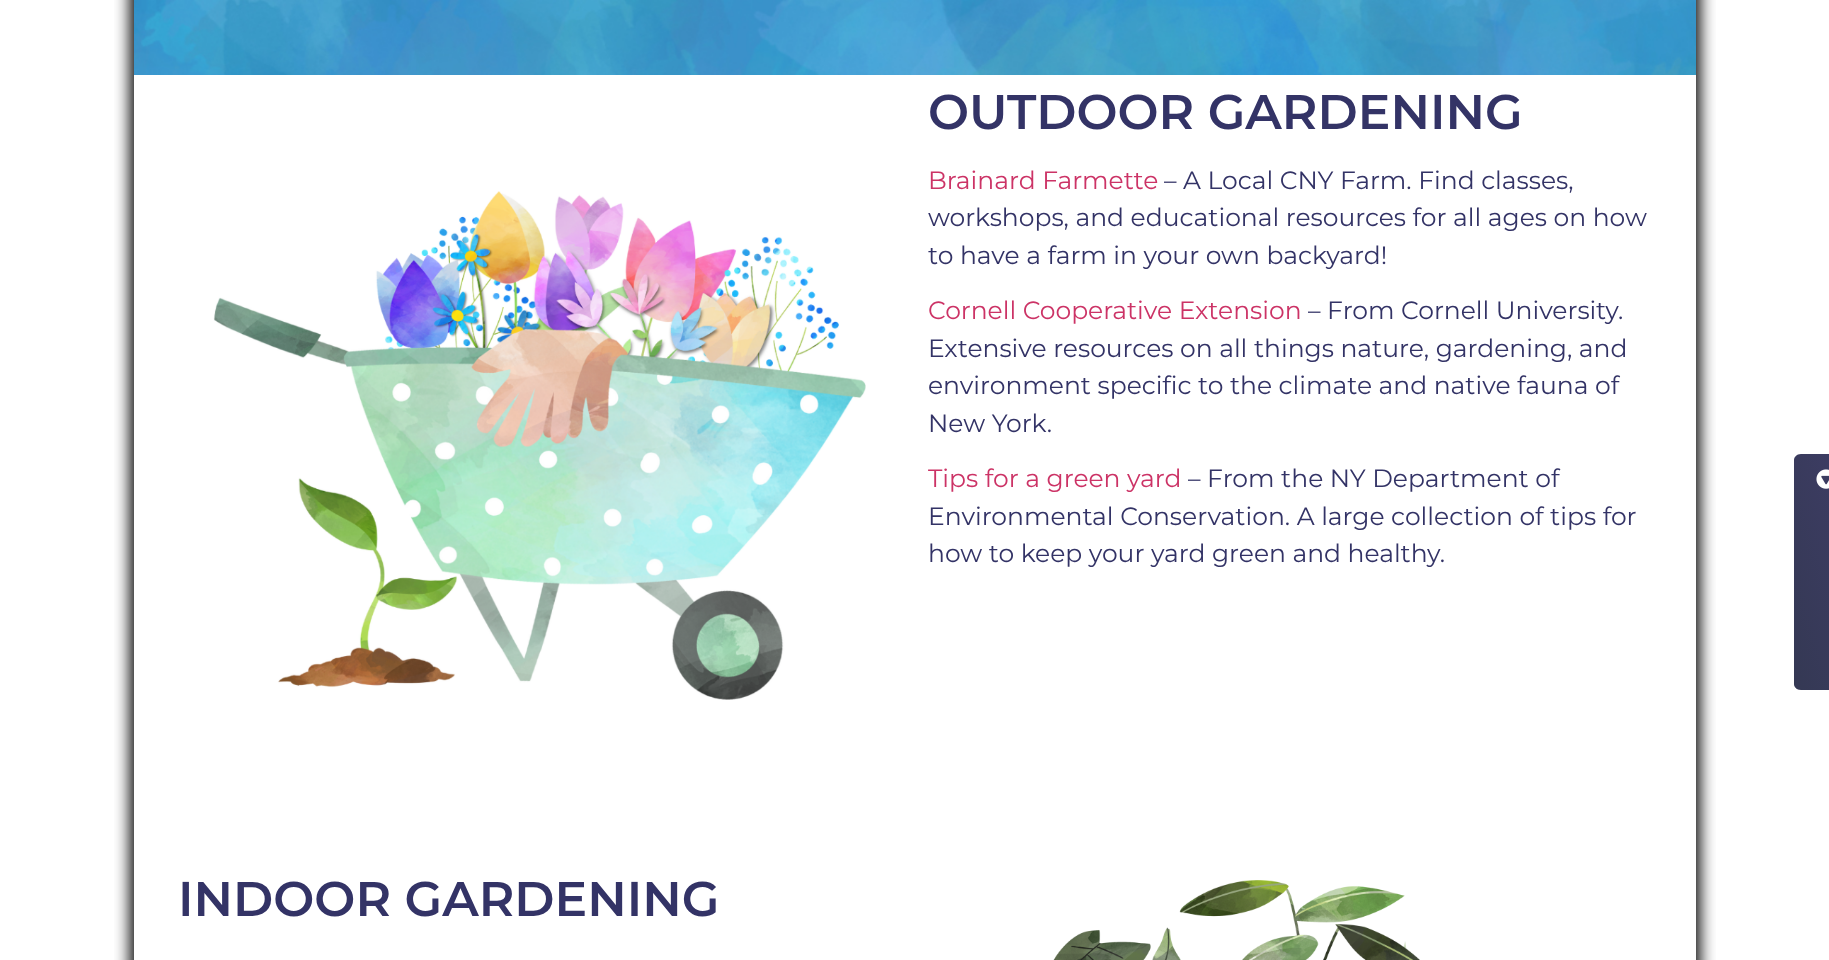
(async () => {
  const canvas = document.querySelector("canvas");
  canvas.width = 1829;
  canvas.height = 960;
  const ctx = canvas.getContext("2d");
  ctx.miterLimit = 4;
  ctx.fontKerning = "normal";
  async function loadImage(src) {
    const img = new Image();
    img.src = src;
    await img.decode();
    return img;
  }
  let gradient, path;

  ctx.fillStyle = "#ffffff";
  ctx.fillRect(0, 0, 1829, 960);
  ctx.save();
  ctx.beginPath();
  ctx.rect(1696, 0, 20, 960);
  ctx.clip();
  ctx.fillStyle = "#000000";
  ctx.filter = "blur(8px)";
  ctx.beginPath();
  ctx.rect(155, -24, 1545, 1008);
  ctx.fill();
  ctx.filter = "none";
  ctx.restore();
  ctx.save();
  ctx.beginPath();
  ctx.rect(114, 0, 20, 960);
  ctx.clip();
  ctx.fillStyle = "#000000";
  ctx.filter = "blur(8px)";
  ctx.beginPath();
  ctx.rect(130, -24, 1545, 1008);
  ctx.fill();
  ctx.filter = "none";
  ctx.restore();
  ctx.drawImage(await loadImage("img/1.png"), 134, 0, 1562, 75);
  ctx.drawImage(await loadImage("img/2.png"), 213, 191, 653, 509);
  ctx.drawImage(await loadImage("img/3.png"), 1053, 880, 367, 80);
  ctx.fillStyle = "#3e3d66";
  path = new Path2D("M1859 460V684C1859 687 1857 690 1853 690H1801C1797 690 1794 687 1794 684V460C1794 457 1797 454 1801 454H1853C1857 454 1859 457 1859 460Z");
  ctx.fill(path);
  gradient = ctx.createLinearGradient(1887, 555, 1766, 589);
  gradient.addColorStop(0, "rgba(38, 50, 56, 0)");
  gradient.addColorStop(1, "rgba(38, 50, 56, 0.4)");
  ctx.fillStyle = gradient;
  path = new Path2D("M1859 460V684C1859 687 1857 690 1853 690H1801C1797 690 1794 687 1794 684V460C1794 457 1797 454 1801 454H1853C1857 454 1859 457 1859 460Z");
  ctx.fill(path);
  ctx.drawImage(await loadImage("img/4.png"), 1816, 469, 13, 20);
  ctx.font = "600 48.75px Montserrat";
  ctx.fillStyle = "#333366";
  ctx.fillText("OUTDOOR GARDENING", 928, 129);
  ctx.font = "25px Montserrat";
  ctx.fillStyle = "#cc3366";
  ctx.fillText("Brainard Farmette", 928, 189);
  ctx.fillStyle = "#333366";
  for (const [text, x, y] of [
    ["– A Local CNY Farm. Find classes,", 1164, 189],
    ["workshops, and educational resources for all ages on how", 928, 226],
    ["to have a farm in your own backyard!", 928, 264],
  ]) {
    ctx.fillText(text, x, y);
  }
  ctx.fillStyle = "#cc3366";
  ctx.fillText("Cornell Cooperative Extension", 928, 319);
  ctx.fillStyle = "#333366";
  for (const [text, x, y] of [
    ["– From Cornell University.", 1308, 319],
    ["Extensive resources on all things nature, gardening, and", 928, 357],
    ["environment specific to the climate and native fauna of", 928, 394],
    ["New York.", 928, 432],
  ]) {
    ctx.fillText(text, x, y);
  }
  ctx.fillStyle = "#cc3366";
  ctx.fillText("Tips for a green yard", 928, 487);
  ctx.fillStyle = "#333366";
  for (const [text, x, y] of [
    ["– From the NY Department of", 1188, 487],
    ["Environmental Conservation. A large collection of tips for", 928, 525],
    ["how to keep your yard green and healthy.", 928, 562],
  ]) {
    ctx.fillText(text, x, y);
  }
  ctx.font = "600 48.75px Montserrat";
  ctx.fillText("INDOOR GARDENING", 178, 916);
})();
